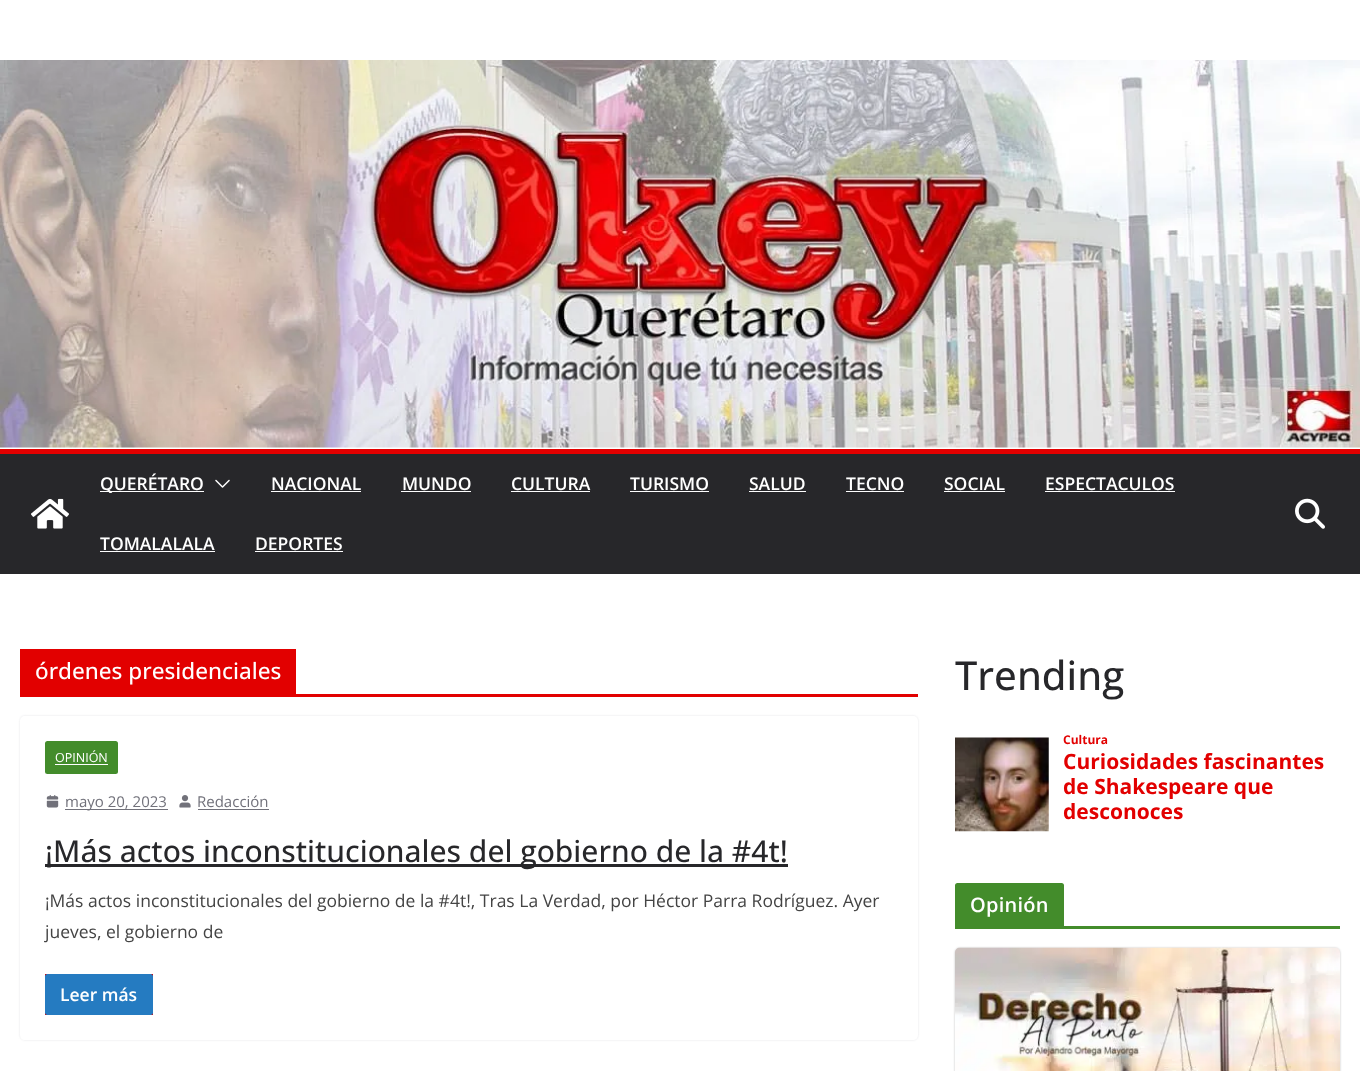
(async () => {
  const canvas = document.querySelector("canvas");
  canvas.width = 1360;
  canvas.height = 1071;
  const ctx = canvas.getContext("2d");
  ctx.miterLimit = 4;
  ctx.fontKerning = "normal";
  async function loadImage(src) {
    const img = new Image();
    img.src = src;
    await img.decode();
    return img;
  }
  let path;

  ctx.fillStyle = "#ffffff";
  ctx.fillRect(0, 0, 1360, 1071);
  ctx.drawImage(await loadImage("img/1.png"), 0, 60, 1360, 388);
  ctx.fillStyle = "#27272a";
  ctx.fillRect(0, 454, 1360, 120);
  ctx.fillStyle = "#e20000";
  ctx.fillRect(0, 449, 1360, 5);
  ctx.drawImage(await loadImage("img/2.png"), 31, 498, 38, 31);
  ctx.fillStyle = "#ffffff";
  ctx.fillRect(100, 491, 104, 1);
  ctx.drawImage(await loadImage("img/3.png"), 215, 479, 15, 9);
  for (const [x, y, w, h, color] of [
    [271, 491, 90, 1, "#ffffff"],
    [401, 491, 70, 1, "#ffffff"],
    [511, 491, 79, 1, "#ffffff"],
    [630, 491, 79, 1, "#ffffff"],
    [749, 491, 57, 1, "#ffffff"],
    [846, 491, 58, 1, "#ffffff"],
    [944, 491, 61, 1, "#ffffff"],
    [1045, 491, 130, 1, "#ffffff"],
    [100, 551, 115, 1, "#ffffff"],
    [255, 551, 88, 1, "#ffffff"],
  ]) {
    ctx.fillStyle = color;
    ctx.fillRect(x, y, w, h);
  }
  ctx.drawImage(await loadImage("img/4.png"), 1295, 498, 30, 31);
  ctx.fillStyle = "#e20000";
  ctx.fillRect(20, 694, 898, 3);
  ctx.fillRect(20, 649, 276, 45);
  ctx.save();
  path = new Path2D("M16 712H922V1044H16ZM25 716H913C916 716 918 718 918 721V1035C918 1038 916 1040 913 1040H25C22 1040 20 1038 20 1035V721C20 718 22 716 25 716Z");
  ctx.clip(path, "evenodd");
  ctx.fillStyle = "#e4e4e7";
  ctx.filter = "blur(1px)";
  ctx.beginPath();
  ctx.roundRect(20, 716, 898, 324, 5);
  ctx.fill();
  ctx.filter = "none";
  ctx.restore();
  ctx.fillStyle = "#438c2b";
  ctx.beginPath();
  ctx.roundRect(45, 741, 73, 33, 2.5);
  ctx.fill();
  ctx.fillStyle = "#ffffff";
  ctx.fillRect(55, 764, 53, 1);
  ctx.drawImage(await loadImage("img/5.png"), 46, 795, 13, 13);
  ctx.fillStyle = "#71717a";
  ctx.fillRect(65, 809, 103, 1);
  ctx.drawImage(await loadImage("img/6.png"), 179, 795, 12, 13);
  for (const [x, y, w, h, color] of [
    [198, 809, 71, 1, "#71717a"],
    [45, 864, 743, 3, "#27272a"],
    [45, 974, 108, 41, "#e20000"],
  ]) {
    ctx.fillStyle = color;
    ctx.fillRect(x, y, w, h);
  }
  ctx.fillStyle = "#257bc1";
  ctx.beginPath();
  ctx.roundRect(45, 974, 108, 41, 2.5);
  ctx.fill();
  ctx.drawImage(await loadImage("img/7.png"), 955, 737, 94, 95);
  ctx.fillStyle = "#438c2b";
  ctx.fillRect(955, 926, 385, 3);
  ctx.beginPath();
  ctx.roundRect(955, 883, 109, 43, [2.5, 2.5, 0, 0]);
  ctx.fill();
  ctx.fillStyle = "rgba(0, 0, 0, 0.24)";
  ctx.filter = "blur(1px)";
  ctx.beginPath();
  ctx.roundRect(955, 948, 385, 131, 5);
  ctx.fill();
  ctx.filter = "none";
  ctx.drawImage(await loadImage("img/8.png"), 955, 947, 385, 124);
  ctx.font = "600 17.5px Open Sans";
  ctx.fillStyle = "#ffffff";
  for (const [text, x, y] of [
    ["QUERÉTARO", 100, 490],
    ["NACIONAL", 271, 490],
    ["MUNDO", 402, 490],
    ["CULTURA", 511, 490],
    ["TURISMO", 630, 490],
    ["SALUD", 749, 490],
    ["TECNO", 846, 490],
    ["SOCIAL", 944, 490],
    ["ESPECTACULOS", 1045, 490],
    ["TOMALALALA", 100, 550],
    ["DEPORTES", 255, 550],
  ]) {
    ctx.fillText(text, x, y);
  }
  ctx.font = "500 22.5px Open Sans";
  ctx.fillText("órdenes presidenciales", 35, 679);
  ctx.font = "12.5px Open Sans";
  ctx.fillText("OPINIÓN", 55, 762);
  ctx.font = "15px Open Sans";
  ctx.fillStyle = "#71717a";
  ctx.fillText("mayo 20, 2023", 65, 807);
  ctx.fillText("Redacción", 197, 807);
  ctx.font = "500 30px Open Sans";
  ctx.fillStyle = "#27272a";
  ctx.fillText("¡Más actos inconstitucionales del gobierno de la #4t!", 45, 862);
  ctx.font = "17.5px Open Sans";
  ctx.fillStyle = "#444444";
  ctx.fillText("¡Más actos inconstitucionales del gobierno de la #4t!, Tras La Verdad, por Héctor Parra Rodríguez. Ayer", 45, 907);
  ctx.fillText("jueves, el gobierno de", 45, 938);
  ctx.font = "600 17.5px Open Sans";
  ctx.fillStyle = "#ffffff";
  ctx.fillText("Leer más", 60, 1001);
  ctx.font = "500 40px Open Sans";
  ctx.fillStyle = "#27272a";
  ctx.fillText("Trending", 955, 690);
  ctx.font = "bold 12px Open Sans";
  ctx.fillStyle = "#e20000";
  ctx.fillText("Cultura", 1063, 744);
  ctx.font = "bold 21px Open Sans";
  for (const [text, x, y] of [
    ["Curiosidades fascinantes", 1063, 769],
    ["de Shakespeare que", 1063, 794],
    ["desconoces", 1063, 819],
  ]) {
    ctx.fillText(text, x, y);
  }
  ctx.letterSpacing = "0.25px";
  ctx.font = "600 20px Open Sans";
  ctx.fillStyle = "#ffffff";
  ctx.fillText("Opinión", 970, 912);
})();
